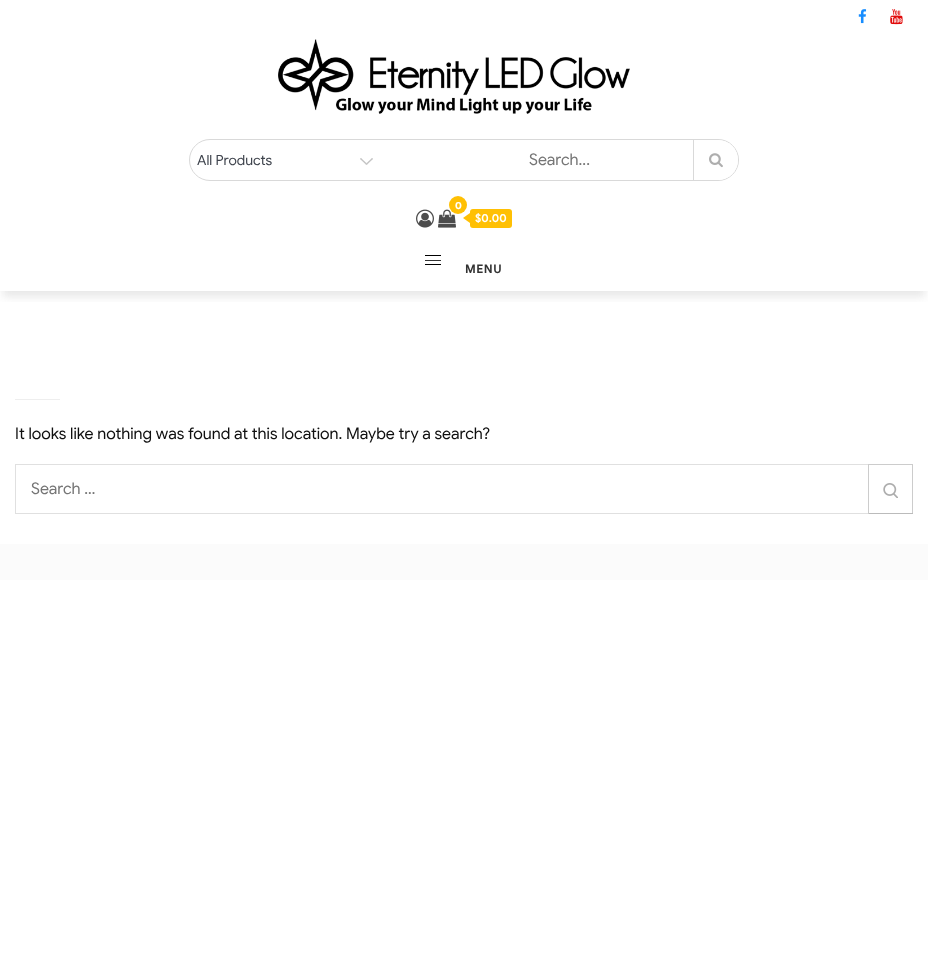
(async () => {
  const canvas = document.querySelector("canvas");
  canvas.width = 928;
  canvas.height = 968;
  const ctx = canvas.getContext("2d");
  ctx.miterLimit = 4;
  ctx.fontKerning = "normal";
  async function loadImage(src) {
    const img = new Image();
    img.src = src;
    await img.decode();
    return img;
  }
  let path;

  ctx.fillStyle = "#ffffff";
  ctx.fillRect(0, 0, 928, 968);
  ctx.save();
  ctx.beginPath();
  ctx.rect(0, 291, 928, 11);
  ctx.clip();
  ctx.fillStyle = "rgba(130, 130, 130, 0.18)";
  ctx.filter = "blur(4px)";
  ctx.beginPath();
  ctx.rect(3, 12, 922, 285);
  ctx.fill();
  ctx.filter = "none";
  ctx.restore();
  ctx.drawImage(await loadImage("img/1.png"), 858, 9, 9, 15);
  ctx.drawImage(await loadImage("img/2.png"), 890, 9, 13, 16);
  ctx.drawImage(await loadImage("img/3.png"), 278, 39, 352, 75);
  ctx.beginPath();
  ctx.roundRect(189.5, 139.5, 549, 41, 20.5);
  ctx.strokeStyle = "#d9d9d9";
  ctx.stroke();
  ctx.drawImage(await loadImage("img/4.png"), 360, 158, 13, 7);
  ctx.beginPath();
  ctx.roundRect(382, 140, 356, 40, [0, 20, 20, 0]);
  ctx.fill();
  ctx.fillStyle = "#d9d9d9";
  ctx.fillRect(693, 140, 1, 40);
  ctx.drawImage(await loadImage("img/5.png"), 709, 153, 14, 15);
  ctx.drawImage(await loadImage("img/6.png"), 416, 209, 18, 19);
  ctx.drawImage(await loadImage("img/7.png"), 438, 209, 18, 19);
  ctx.fillStyle = "#ffc004";
  ctx.beginPath();
  ctx.arc(458, 205, 9, 0, Math.PI * 2);
  ctx.fill();
  ctx.beginPath();
  ctx.roundRect(470, 209, 42, 19, 3);
  ctx.fill();
  path = new Path2D("M470 213V223L463 218Z");
  ctx.fill(path);
  for (const [x, y, w, h, color] of [
    [425, 255, 16, 1, "#000000"],
    [425, 260, 16, 1, "#333333"],
    [425, 264, 16, 1, "#000000"],
    [15, 399, 45, 1, "#eeeeee"],
  ]) {
    ctx.fillStyle = color;
    ctx.fillRect(x, y, w, h);
  }
  ctx.strokeStyle = "#e0e0e0";
  ctx.strokeRect(15.5, 464.5, 897, 49);
  for (const [x, y, w, h, color] of [
    [868, 464, 45, 1, "#cccccc"],
    [912, 464, 1, 50, "#cccccc"],
    [868, 513, 45, 1, "#bbbbbb"],
    [868, 464, 1, 50, "#cccccc"],
  ]) {
    ctx.fillStyle = color;
    ctx.fillRect(x, y, w, h);
  }
  ctx.drawImage(await loadImage("img/8.png"), 883, 483, 15, 15);
  ctx.fillStyle = "#fbfbfb";
  ctx.fillRect(0, 544, 928, 36);
  ctx.font = "14px Google Sans";
  ctx.fillStyle = "#3f444d";
  ctx.fillText("All Products", 197, 165);
  ctx.font = "16px Google Sans";
  ctx.fillStyle = "#757575";
  ctx.fillText("Search...", 529, 165);
  ctx.font = "bold 10px Montserrat";
  ctx.fillStyle = "#ffffff";
  ctx.fillText("0", 455, 209);
  ctx.font = "bold 11px Google Sans";
  ctx.fillText("$0.00", 475, 222);
  ctx.letterSpacing = "0.5px";
  ctx.font = "bold 12px Google Sans";
  ctx.fillStyle = "#333333";
  ctx.fillText("MENU", 465, 273);
  ctx.letterSpacing = "0px";
  ctx.font = "16px Google Sans";
  ctx.fillStyle = "#0f0f0f";
  ctx.fillText("It looks like nothing was found at this location. Maybe try a search?", 15, 439);
  ctx.fillStyle = "#757575";
  ctx.fillText("Search …", 31, 494);
})();
